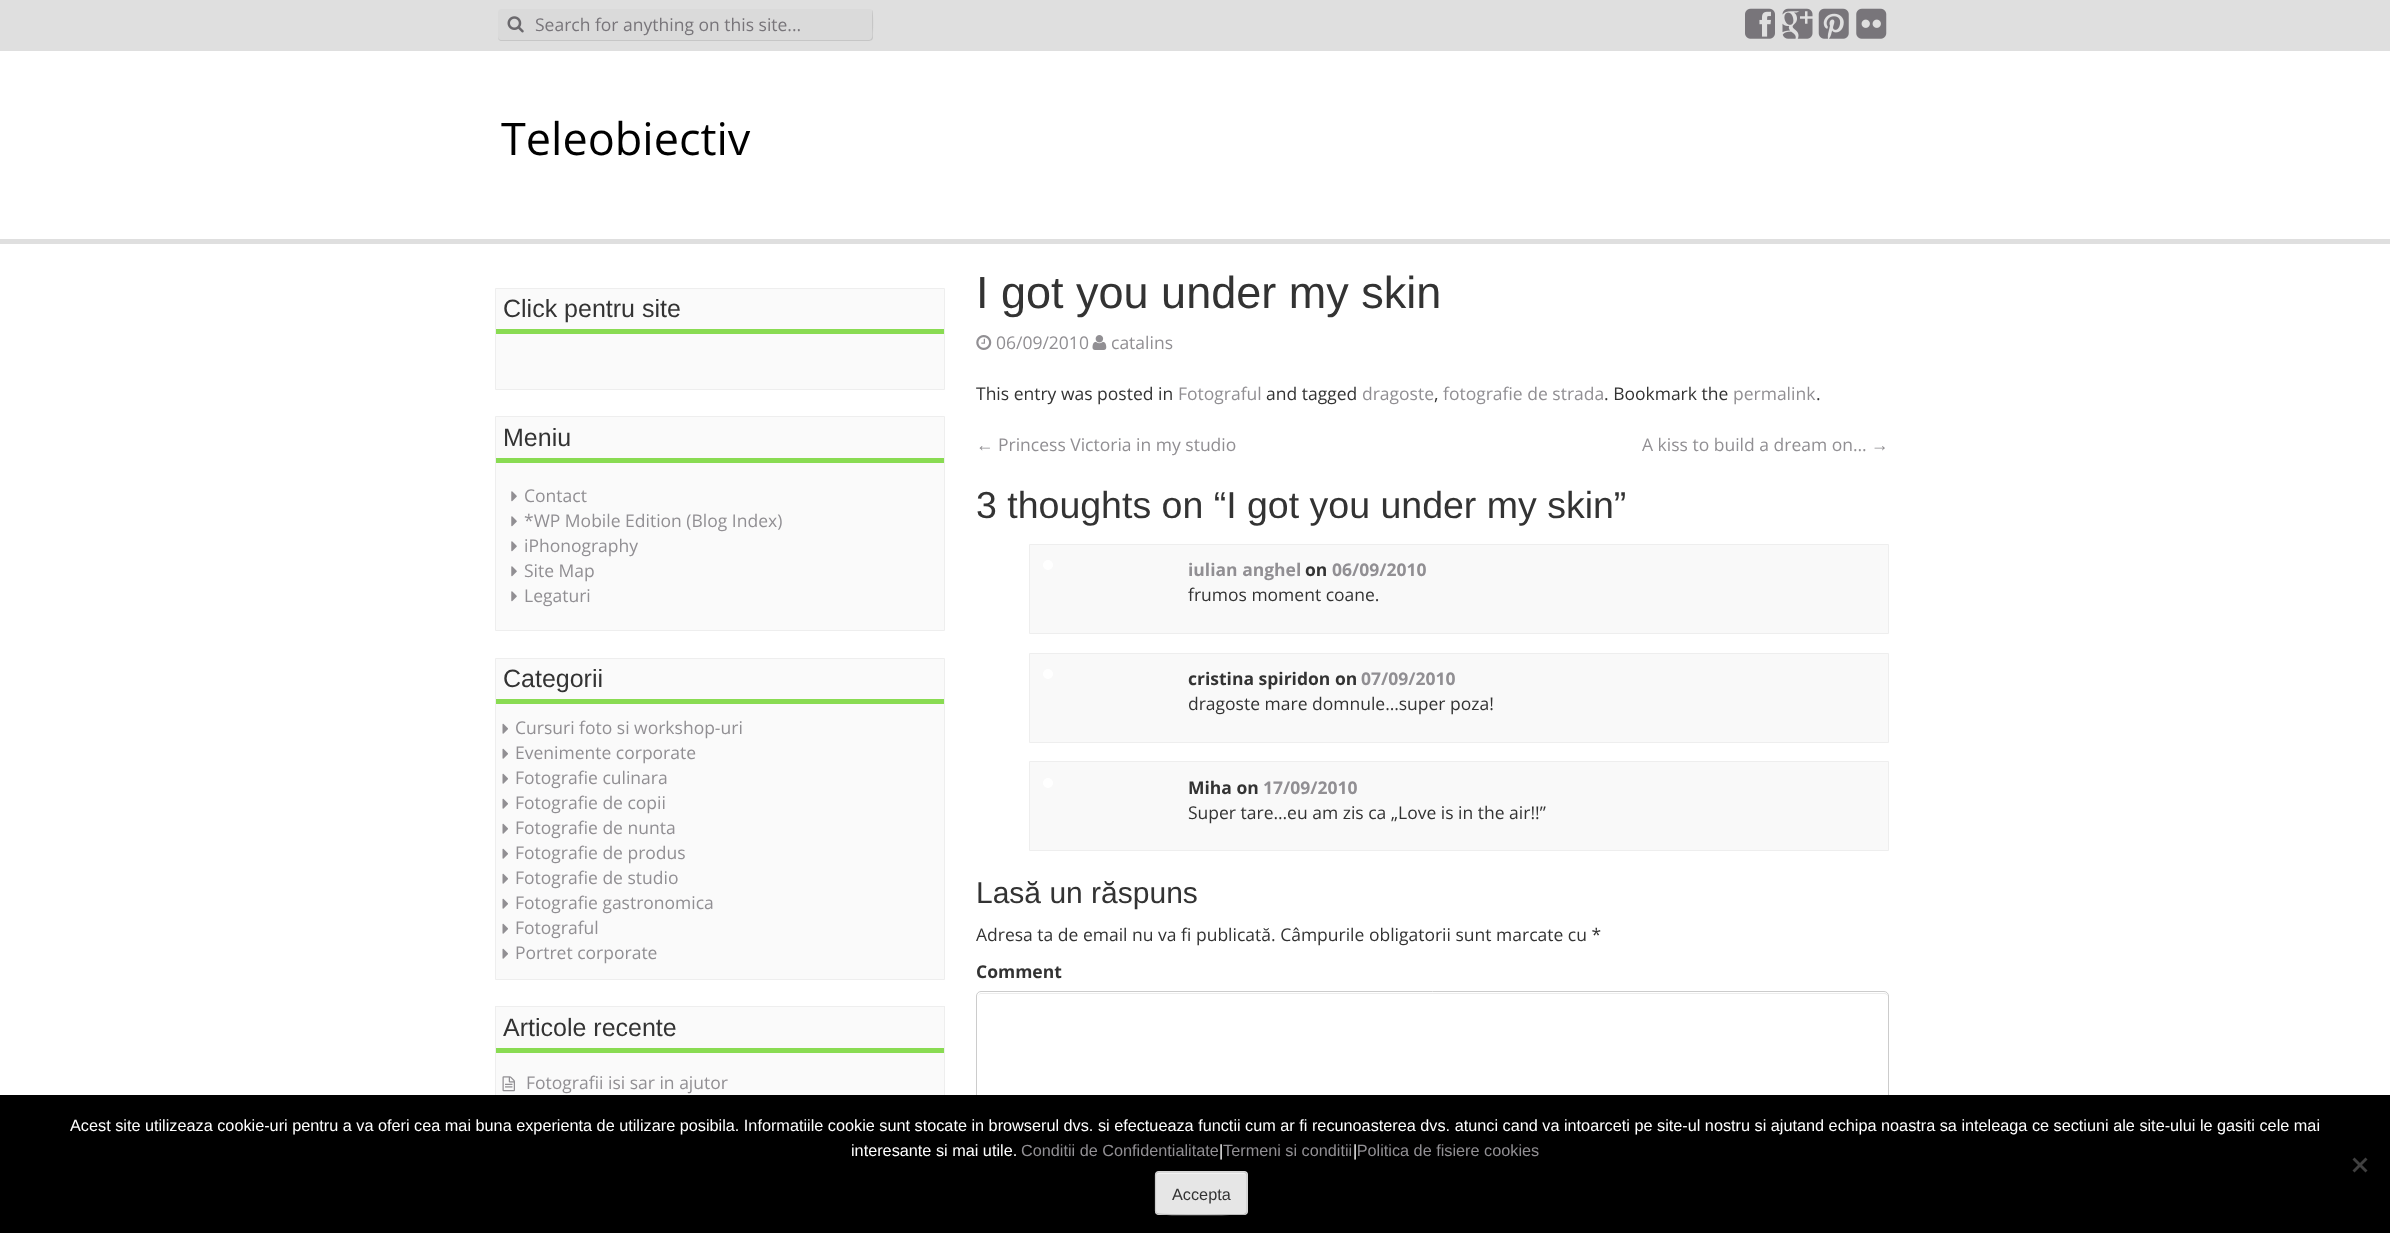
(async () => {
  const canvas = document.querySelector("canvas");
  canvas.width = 2390;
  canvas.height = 1233;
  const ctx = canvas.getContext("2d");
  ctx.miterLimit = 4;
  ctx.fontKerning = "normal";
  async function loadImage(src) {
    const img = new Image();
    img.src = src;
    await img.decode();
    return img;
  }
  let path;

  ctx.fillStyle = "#ffffff";
  ctx.fillRect(0, 0, 2390, 1233);
  ctx.fillStyle = "#dfdfdf";
  ctx.fillRect(0, 0, 2390, 51);
  ctx.fillStyle = "#dadada";
  ctx.beginPath();
  ctx.roundRect(498, 9, 375, 32, 4);
  ctx.fill();
  ctx.fillStyle = "#c6c6c6";
  path = new Path2D("M498 36C498 39 499 41 502 41H869L872 40L873 38C873 35 874 12 872 10V28C872 30 874 40 869 40H501C499 40 498 38 498 36Z");
  ctx.fill(path);
  ctx.drawImage(await loadImage("img/1.png"), 507, 16, 17, 17);
  ctx.drawImage(await loadImage("img/2.png"), 1745, 8, 30, 31);
  ctx.drawImage(await loadImage("img/3.png"), 1782, 8, 31, 31);
  ctx.drawImage(await loadImage("img/4.png"), 1818, 8, 31, 31);
  ctx.drawImage(await loadImage("img/5.png"), 1856, 8, 31, 31);
  ctx.fillStyle = "#dfdfdf";
  ctx.fillRect(0, 239, 2390, 5);
  ctx.fillStyle = "#fafafa";
  ctx.beginPath();
  ctx.rect(495.5, 288.5, 449, 101);
  ctx.fill();
  ctx.strokeStyle = "#eeeeee";
  ctx.stroke();
  ctx.fillStyle = "#89db52";
  ctx.fillRect(496, 329, 448, 5);
  ctx.fillStyle = "#fafafa";
  ctx.beginPath();
  ctx.rect(495.5, 416.5, 449, 214);
  ctx.fill();
  ctx.stroke();
  ctx.fillStyle = "#89db52";
  ctx.fillRect(496, 458, 448, 5);
  ctx.drawImage(await loadImage("img/6.png"), 511, 491, 6, 11);
  ctx.drawImage(await loadImage("img/6.png"), 511, 516, 6, 11);
  ctx.drawImage(await loadImage("img/6.png"), 511, 541, 6, 11);
  ctx.drawImage(await loadImage("img/6.png"), 511, 566, 6, 11);
  ctx.drawImage(await loadImage("img/6.png"), 511, 591, 6, 11);
  ctx.fillStyle = "#fafafa";
  ctx.beginPath();
  ctx.rect(495.5, 658.5, 449, 321);
  ctx.fill();
  ctx.stroke();
  ctx.fillStyle = "#89db52";
  ctx.fillRect(496, 699, 448, 5);
  ctx.drawImage(await loadImage("img/7.png"), 502, 723, 6, 11);
  ctx.drawImage(await loadImage("img/7.png"), 502, 748, 6, 11);
  ctx.drawImage(await loadImage("img/7.png"), 502, 773, 6, 11);
  ctx.drawImage(await loadImage("img/7.png"), 502, 798, 6, 11);
  ctx.drawImage(await loadImage("img/7.png"), 502, 823, 6, 11);
  ctx.drawImage(await loadImage("img/7.png"), 502, 848, 6, 11);
  ctx.drawImage(await loadImage("img/7.png"), 502, 873, 6, 11);
  ctx.drawImage(await loadImage("img/7.png"), 502, 898, 6, 11);
  ctx.drawImage(await loadImage("img/7.png"), 502, 923, 6, 11);
  ctx.drawImage(await loadImage("img/7.png"), 502, 948, 6, 11);
  ctx.fillStyle = "#fafafa";
  ctx.fillRect(496, 1007, 448, 88);
  ctx.strokeRect(495.5, 1006.5, 449, 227);
  ctx.fillStyle = "#89db52";
  ctx.fillRect(496, 1048, 448, 5);
  ctx.drawImage(await loadImage("img/8.png"), 502, 1076, 13, 16);
  ctx.drawImage(await loadImage("img/9.png"), 976, 335, 16, 15);
  ctx.drawImage(await loadImage("img/10.png"), 1092, 335, 15, 15);
  ctx.fillStyle = "#f9f9f9";
  ctx.beginPath();
  ctx.rect(1029.5, 544.5, 859, 89);
  ctx.fill();
  ctx.stroke();
  ctx.fillStyle = "#ffffff";
  ctx.beginPath();
  ctx.arc(1048, 565, 5, 0, Math.PI * 2);
  ctx.fill();
  ctx.fillStyle = "#f9f9f9";
  ctx.beginPath();
  ctx.rect(1029.5, 653.5, 859, 89);
  ctx.fill();
  ctx.stroke();
  ctx.fillStyle = "#ffffff";
  ctx.beginPath();
  ctx.arc(1048, 674, 5, 0, Math.PI * 2);
  ctx.fill();
  ctx.fillStyle = "#f9f9f9";
  ctx.beginPath();
  ctx.rect(1029.5, 761.5, 859, 89);
  ctx.fill();
  ctx.stroke();
  ctx.fillStyle = "#ffffff";
  ctx.beginPath();
  ctx.arc(1048, 783, 5, 0, Math.PI * 2);
  ctx.fill();
  ctx.fillStyle = "#ececec";
  path = new Path2D("M981 994H1884C1886 994 1888 995 1888 998C1888 995 1887 993 1884 993H982C979 993 978 995 978 998C978 995 979 994 981 994Z");
  ctx.fill(path);
  ctx.beginPath();
  ctx.roundRect(976.5, 991.5, 912, 217, 4.5);
  ctx.strokeStyle = "#cccccc";
  ctx.stroke();
  ctx.fillStyle = "#000000";
  ctx.fillRect(0, 1095, 2390, 138);
  ctx.fillStyle = "#404040";
  path = new Path2D("M2365.5 1157.5L2367.5 1159.5L2354.5 1172.5L2352.5 1170.5Z");
  ctx.fill(path);
  path = new Path2D("M2352.5 1159.5L2354.5 1157.5L2367.5 1170.5L2365.5 1172.5Z");
  ctx.fill(path);
  ctx.fillStyle = "#e6e6e6";
  ctx.beginPath();
  ctx.roundRect(1155, 1171, 93, 44, 4);
  ctx.fill();
  ctx.fillStyle = "#f3f3f3";
  path = new Path2D("M1159 1174H1244C1245 1174 1246 1175 1246 1176C1246 1175 1245 1173 1244 1173H1158C1157 1173 1156 1174 1156 1176C1156 1175 1157 1174 1159 1174Z");
  ctx.fill(path);
  path = new Path2D("M1246 1213.5L1244 1214.5H1229.5C1221.5 1214.5 1159 1215.5 1157 1213.5H1156.5");
  ctx.strokeStyle = "#bbbbbb";
  ctx.lineWidth = 1.2;
  ctx.stroke(path);
  path = new Path2D("M1156.5 1213.5L1155.5 1211V1175L1156.5 1173L1159 1172H1244L1246 1173L1247 1175V1211L1246 1213.5");
  ctx.strokeStyle = "#cccccc";
  ctx.stroke(path);
  ctx.font = "17.5px Open Sans";
  ctx.fillStyle = "#78757a";
  ctx.fillText("Search for anything on this site...", 535, 31);
  ctx.font = "45px Open Sans";
  ctx.fillStyle = "#000000";
  ctx.fillText("Teleobiectiv", 501, 155);
  ctx.font = "25px Liberation Sans";
  ctx.fillStyle = "#333333";
  ctx.fillText("Click pentru site", 503, 317);
  ctx.fillText("Meniu", 503, 446);
  ctx.font = "17.5px Open Sans";
  ctx.fillStyle = "#918f93";
  for (const [text, x, y] of [
    ["Contact", 524, 502],
    ["*WP Mobile Edition (Blog Index)", 524, 527],
    ["iPhonography", 524, 552],
    ["Site Map", 524, 577],
    ["Legaturi", 524, 602],
  ]) {
    ctx.fillText(text, x, y);
  }
  ctx.font = "25px Liberation Sans";
  ctx.fillStyle = "#333333";
  ctx.fillText("Categorii", 503, 687);
  ctx.font = "17.5px Open Sans";
  ctx.fillStyle = "#918f93";
  for (const [text, x, y] of [
    ["Cursuri foto si workshop-uri", 515, 734],
    ["Evenimente corporate", 515, 759],
    ["Fotografie culinara", 515, 784],
    ["Fotografie de copii", 515, 809],
    ["Fotografie de nunta", 515, 834],
    ["Fotografie de produs", 515, 859],
    ["Fotografie de studio", 515, 884],
    ["Fotografie gastronomica", 515, 909],
    ["Fotograful", 515, 934],
    ["Portret corporate", 515, 959],
  ]) {
    ctx.fillText(text, x, y);
  }
  ctx.font = "25px Liberation Sans";
  ctx.fillStyle = "#333333";
  ctx.fillText("Articole recente", 503, 1036);
  ctx.font = "17.5px Open Sans";
  ctx.fillStyle = "#918f93";
  ctx.fillText("Fotografii isi sar in ajutor", 526, 1089);
  ctx.font = "45px Liberation Sans";
  ctx.fillStyle = "#333333";
  ctx.fillText("I got you under my skin", 976, 308);
  ctx.font = "17.5px Open Sans";
  ctx.fillStyle = "#918f93";
  ctx.fillText("06/09/2010", 996, 349);
  ctx.fillText("catalins", 1111, 349);
  ctx.fillStyle = "#333333";
  ctx.fillText("This entry was posted in", 976, 400);
  ctx.fillStyle = "#918f93";
  ctx.fillText("Fotograful", 1178, 400);
  ctx.fillStyle = "#333333";
  ctx.fillText("and tagged", 1266, 400);
  ctx.fillStyle = "#918f93";
  ctx.fillText("dragoste", 1362, 400);
  ctx.fillStyle = "#333333";
  ctx.fillText(",", 1434, 400);
  ctx.fillStyle = "#918f93";
  ctx.fillText("fotografie de strada", 1443, 400);
  ctx.fillStyle = "#333333";
  ctx.fillText(". Bookmark the", 1604, 400);
  ctx.fillStyle = "#918f93";
  ctx.fillText("permalink", 1733, 400);
  ctx.fillStyle = "#333333";
  ctx.fillText(".", 1816, 400);
  ctx.font = "17.5px Liberation Sans";
  ctx.fillStyle = "#918f93";
  ctx.fillText("←", 976, 451);
  ctx.font = "17.5px Open Sans";
  ctx.fillText("Princess Victoria in my studio", 998, 451);
  ctx.fillText("A kiss to build a dream on…", 1642, 451);
  ctx.font = "17.5px Liberation Sans";
  ctx.fillText("→", 1871, 451);
  ctx.font = "37.5px Liberation Sans";
  ctx.fillStyle = "#333333";
  ctx.fillText("3 thoughts on “I got you under my skin”", 976, 518);
  ctx.font = "bold 17.5px Open Sans";
  ctx.fillStyle = "#918f93";
  ctx.fillText("iulian anghel", 1188, 576);
  ctx.fillStyle = "#333333";
  ctx.fillText("on", 1305, 576);
  ctx.fillStyle = "#918f93";
  ctx.fillText("06/09/2010", 1332, 576);
  ctx.font = "17.5px Open Sans";
  ctx.fillStyle = "#333333";
  ctx.fillText("frumos moment coane.", 1188, 601);
  ctx.font = "bold 17.5px Open Sans";
  ctx.fillText("cristina spiridon on", 1188, 685);
  ctx.fillStyle = "#918f93";
  ctx.fillText("07/09/2010", 1361, 685);
  ctx.font = "17.5px Open Sans";
  ctx.fillStyle = "#333333";
  ctx.fillText("dragoste mare domnule…super poza!", 1188, 710);
  ctx.font = "bold 17.5px Open Sans";
  ctx.fillText("Miha on", 1188, 794);
  ctx.fillStyle = "#918f93";
  ctx.fillText("17/09/2010", 1263, 794);
  ctx.font = "17.5px Open Sans";
  ctx.fillStyle = "#333333";
  ctx.fillText("Super tare…eu am zis ca „Love is in the air!!”", 1188, 819);
  ctx.font = "30px Liberation Sans";
  ctx.fillText("Lasă un răspuns", 976, 903);
  ctx.font = "17.5px Open Sans";
  ctx.fillText("Adresa ta de email nu va fi publicată. Câmpurile obligatorii sunt marcate cu *", 976, 941);
  ctx.font = "bold 17.5px Open Sans";
  ctx.fillText("Comment", 976, 978);
  ctx.font = "16.25px Liberation Sans";
  ctx.fillStyle = "#ffffff";
  ctx.fillText("Acest site utilizeaza cookie-uri pentru a va oferi cea mai buna experienta de utilizare posibila. Informatiile cookie sunt stocate in browserul dvs. si efectueaza functii cum ar fi recunoasterea dvs. atunci cand va intoarceti pe site-ul nostru si ajutand echipa noastra sa inteleaga ce sectiuni ale site-ului le gasiti cele mai", 70, 1131);
  ctx.fillText("interesante si mai utile.", 851, 1156);
  ctx.fillStyle = "#918f93";
  ctx.fillText("Conditii de Confidentialitate Termeni si conditii Politica de fisiere cookies", 1021, 1156);
  ctx.fillStyle = "#ffffff";
  ctx.fillText("|", 1219, 1156);
  ctx.fillText("|", 1353, 1156);
  ctx.fillStyle = "#333333";
  ctx.fillText("Accepta", 1172, 1200);
})();
